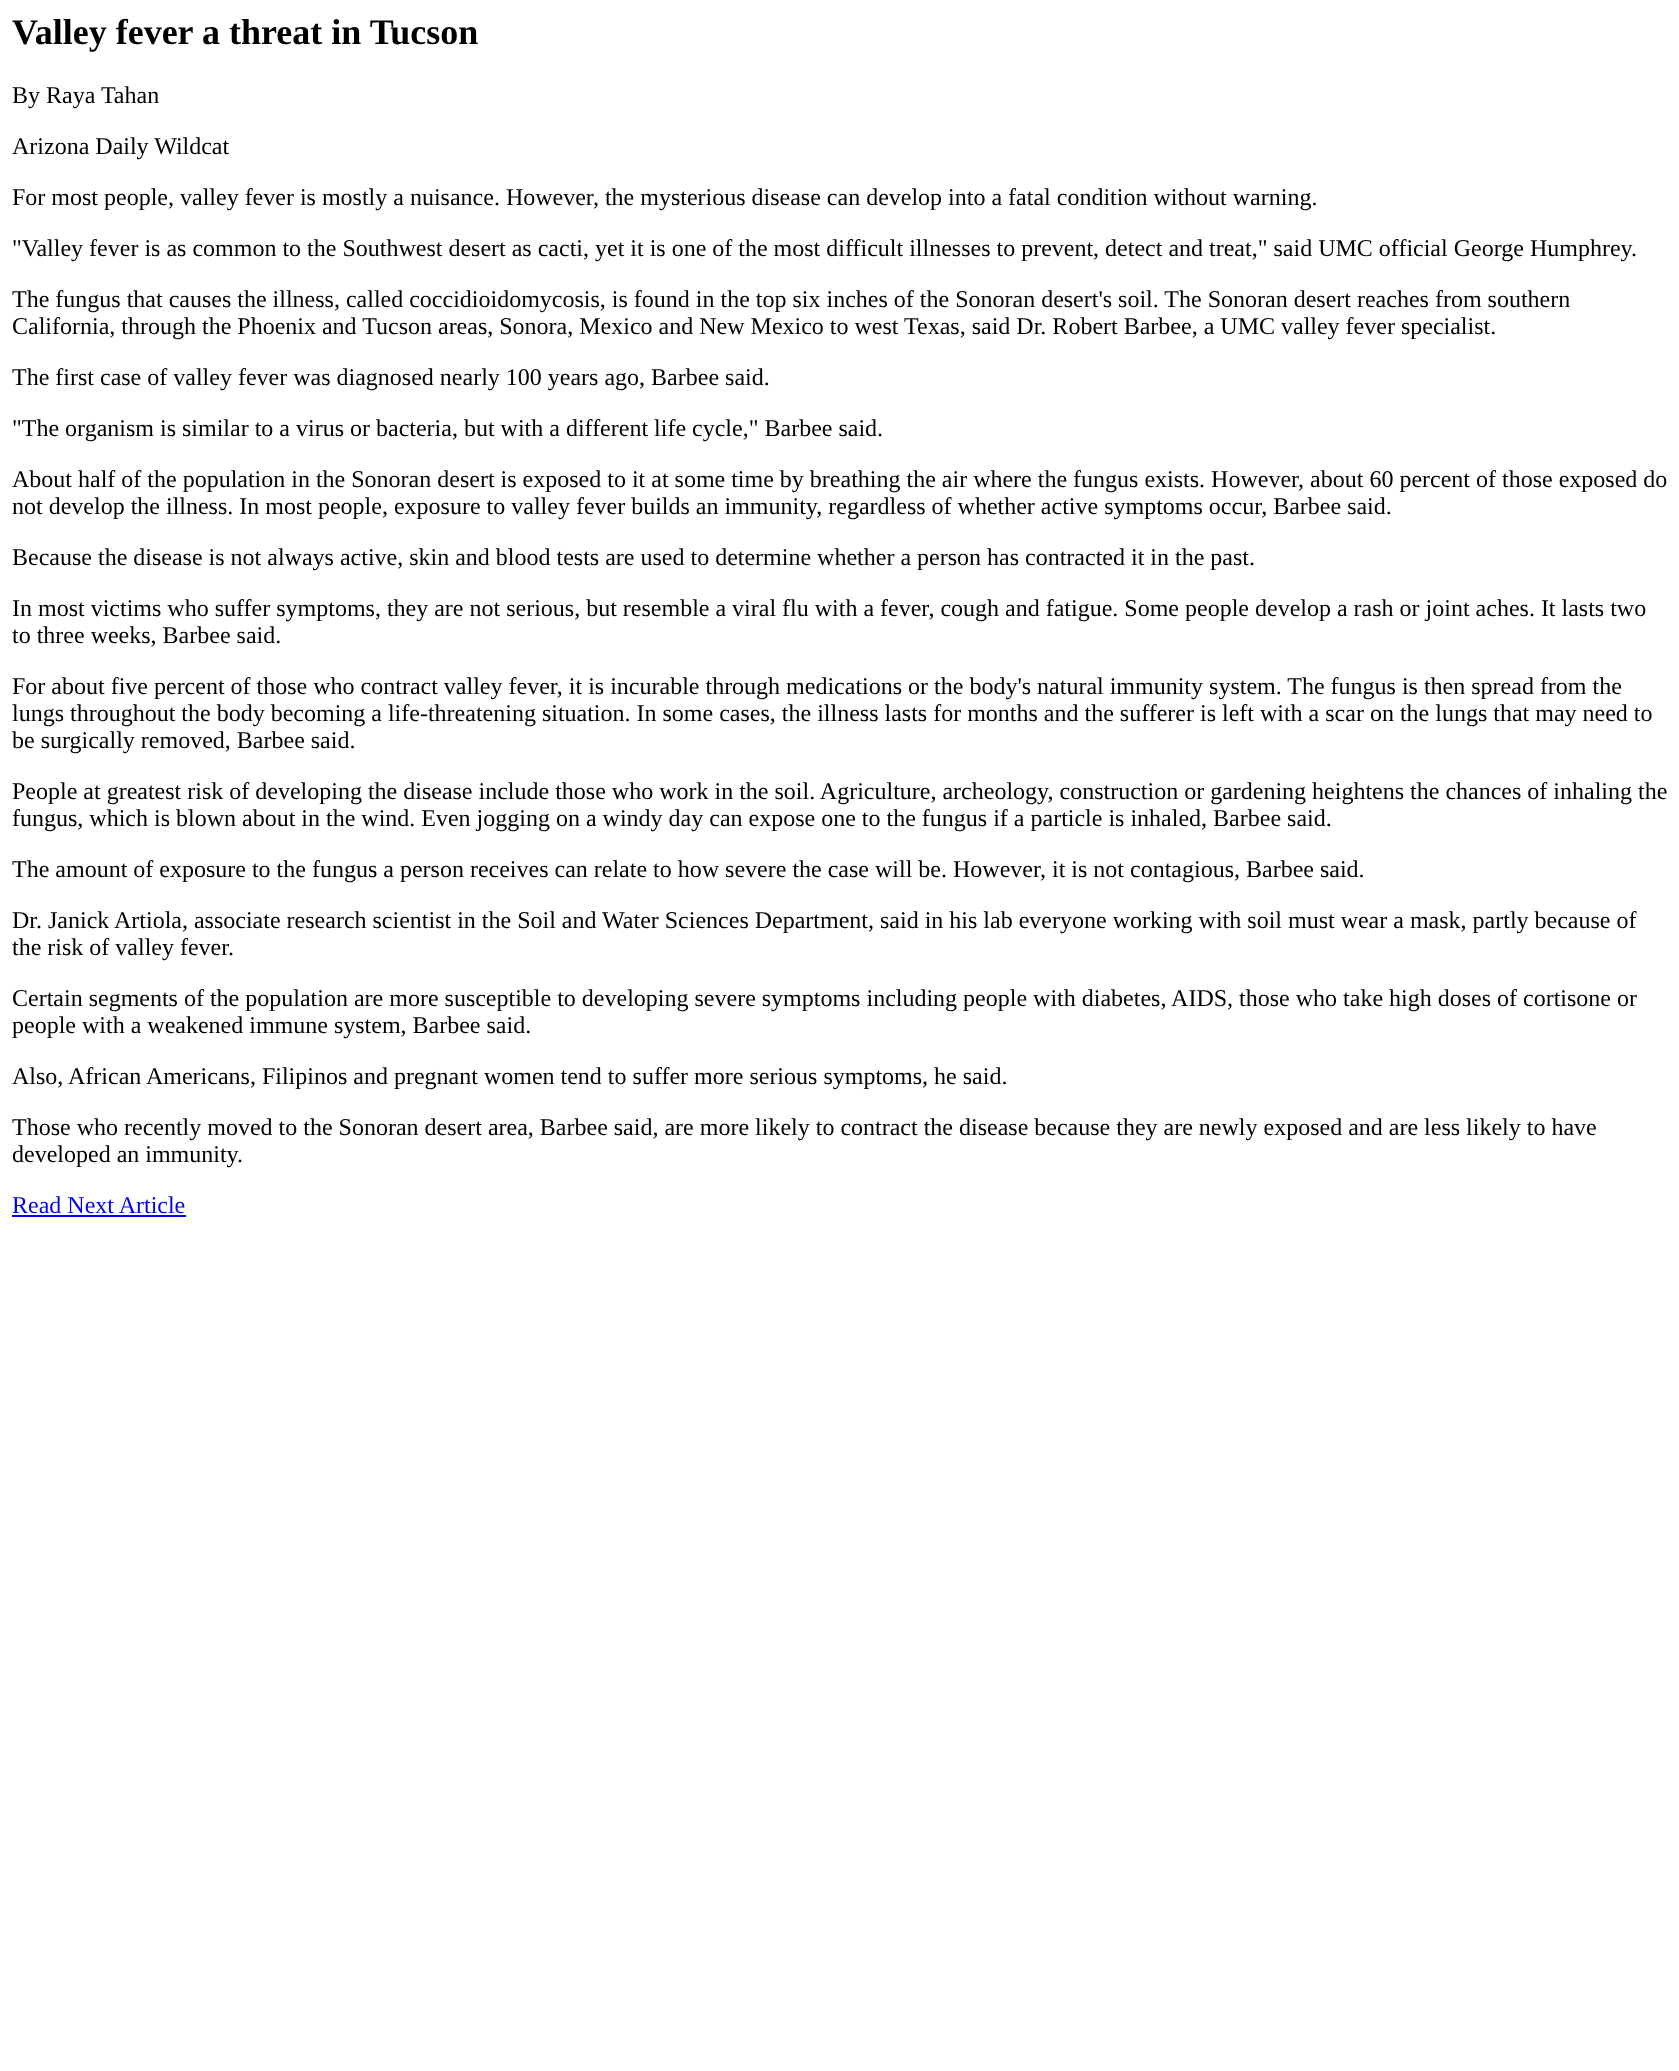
(async () => {
  const canvas = document.querySelector("canvas");
  canvas.width = 1679;
  canvas.height = 2071;
  const ctx = canvas.getContext("2d");
  ctx.miterLimit = 4;
  ctx.fontKerning = "normal";

  ctx.fillStyle = "#ffffff";
  ctx.fillRect(0, 0, 1679, 2071);
  ctx.fillStyle = "#0000ee";
  ctx.fillRect(12, 1215, 174, 2);
  ctx.font = "bold 36px Liberation Serif";
  ctx.fillStyle = "#000000";
  ctx.fillText("Valley fever a threat in Tucson", 12, 44);
  ctx.font = "24px Liberation Serif";
  for (const [text, x, y] of [
    ["By Raya Tahan", 12, 103],
    ["Arizona Daily Wildcat", 12, 154],
    ["For most people, valley fever is mostly a nuisance. However, the mysterious disease can develop into a fatal condition without warning.", 12, 205],
    ["\"Valley fever is as common to the Southwest desert as cacti, yet it is one of the most difficult illnesses to prevent, detect and treat,\" said UMC official George Humphrey.", 12, 256],
    ["The fungus that causes the illness, called coccidioidomycosis, is found in the top six inches of the Sonoran desert's soil. The Sonoran desert reaches from southern", 12, 307],
    ["California, through the Phoenix and Tucson areas, Sonora, Mexico and New Mexico to west Texas, said Dr. Robert Barbee, a UMC valley fever specialist.", 12, 334],
    ["The first case of valley fever was diagnosed nearly 100 years ago, Barbee said.", 12, 385],
    ["\"The organism is similar to a virus or bacteria, but with a different life cycle,\" Barbee said.", 12, 436],
    ["About half of the population in the Sonoran desert is exposed to it at some time by breathing the air where the fungus exists. However, about 60 percent of those exposed do", 12, 487],
    ["not develop the illness. In most people, exposure to valley fever builds an immunity, regardless of whether active symptoms occur, Barbee said.", 12, 514],
    ["Because the disease is not always active, skin and blood tests are used to determine whether a person has contracted it in the past.", 12, 565],
    ["In most victims who suffer symptoms, they are not serious, but resemble a viral flu with a fever, cough and fatigue. Some people develop a rash or joint aches. It lasts two", 12, 616],
    ["to three weeks, Barbee said.", 12, 643],
    ["For about five percent of those who contract valley fever, it is incurable through medications or the body's natural immunity system. The fungus is then spread from the", 12, 694],
    ["lungs throughout the body becoming a life-threatening situation. In some cases, the illness lasts for months and the sufferer is left with a scar on the lungs that may need to", 12, 721],
    ["be surgically removed, Barbee said.", 12, 748],
    ["People at greatest risk of developing the disease include those who work in the soil. Agriculture, archeology, construction or gardening heightens the chances of inhaling the", 12, 799],
    ["fungus, which is blown about in the wind. Even jogging on a windy day can expose one to the fungus if a particle is inhaled, Barbee said.", 12, 826],
    ["The amount of exposure to the fungus a person receives can relate to how severe the case will be. However, it is not contagious, Barbee said.", 12, 877],
    ["Dr. Janick Artiola, associate research scientist in the Soil and Water Sciences Department, said in his lab everyone working with soil must wear a mask, partly because of", 12, 928],
    ["the risk of valley fever.", 12, 955],
    ["Certain segments of the population are more susceptible to developing severe symptoms including people with diabetes, AIDS, those who take high doses of cortisone or", 12, 1006],
    ["people with a weakened immune system, Barbee said.", 12, 1033],
    ["Also,", 12, 1084],
    ["African Americans, Filipinos and pregnant women tend to suffer more serious symptoms, he said.", 68, 1084],
    ["Those who recently moved to the Sonoran desert area, Barbee said, are more likely to contract the disease because they are newly exposed and are less likely to have", 12, 1135],
    ["developed an immunity.", 12, 1162],
  ]) {
    ctx.fillText(text, x, y);
  }
  ctx.fillStyle = "#0000ee";
  ctx.fillText("Read Next Article", 12, 1213);
})();
